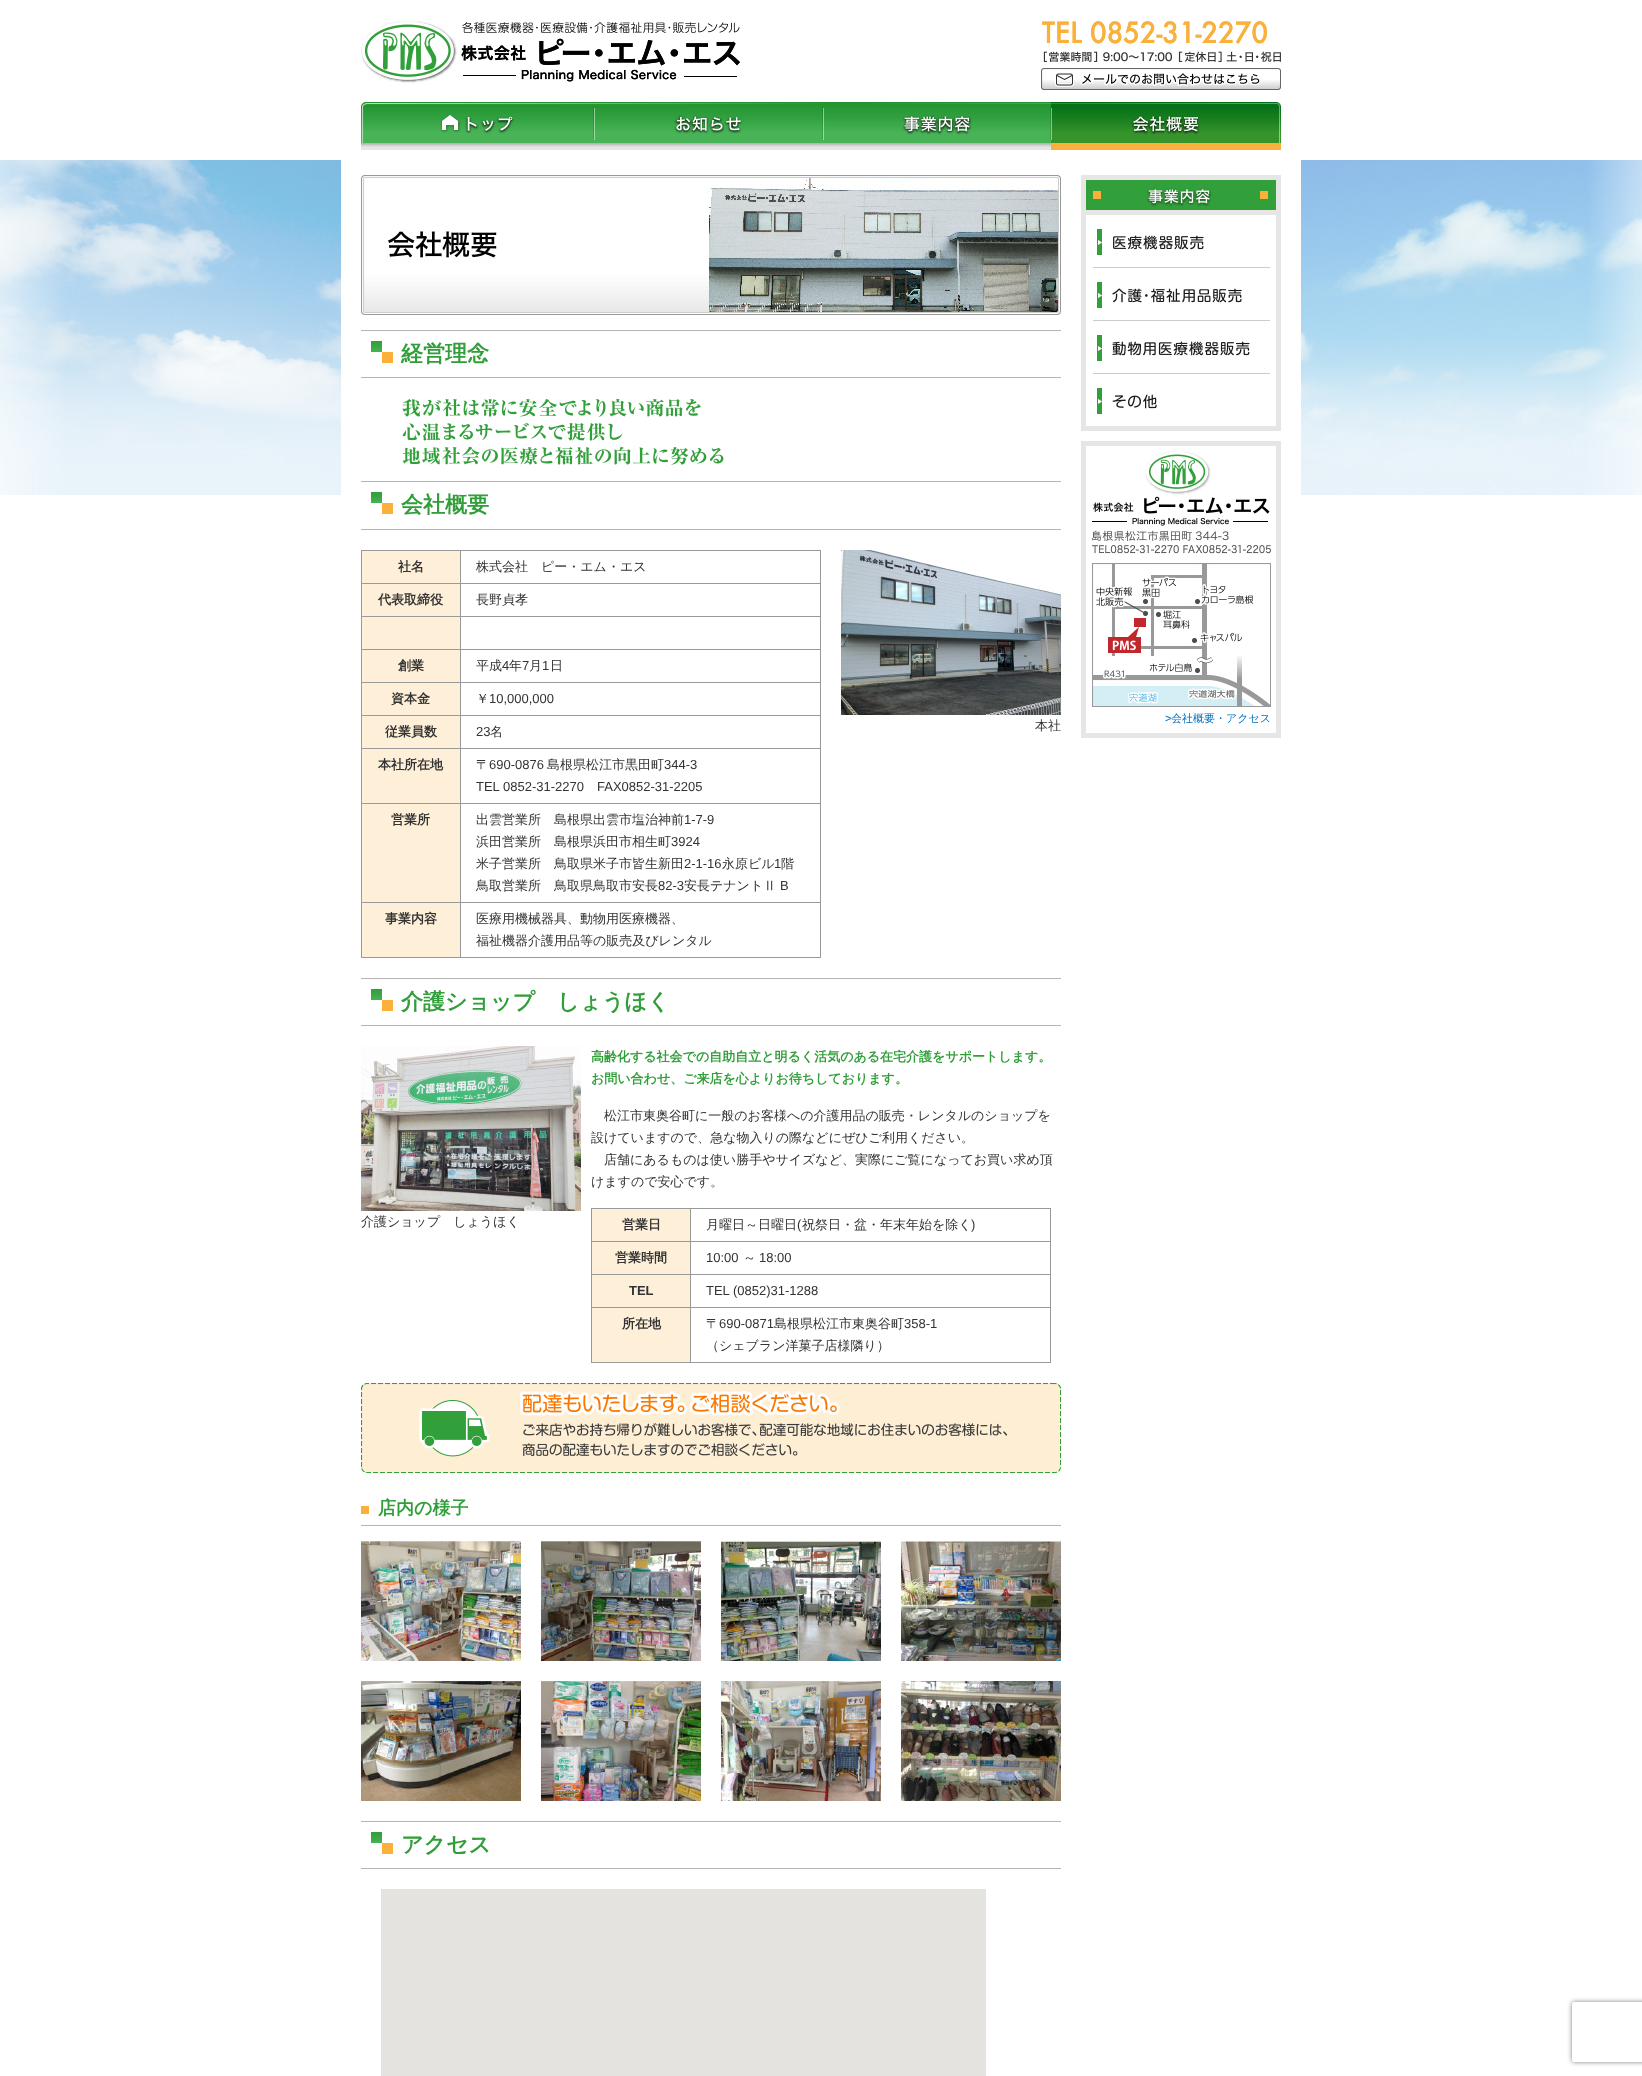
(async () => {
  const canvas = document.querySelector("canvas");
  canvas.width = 1642;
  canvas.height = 2076;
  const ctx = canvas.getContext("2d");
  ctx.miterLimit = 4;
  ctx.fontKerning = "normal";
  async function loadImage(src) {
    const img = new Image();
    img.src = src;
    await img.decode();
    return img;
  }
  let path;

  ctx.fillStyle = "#ffffff";
  ctx.fillRect(0, 0, 1642, 2076);
  ctx.drawImage(await loadImage("img/1.png"), 361, 21, 379, 62);
  ctx.drawImage(await loadImage("img/2.png"), 1042, 21, 239, 41);
  ctx.drawImage(await loadImage("img/3.png"), 1041, 68, 240, 22);
  ctx.drawImage(await loadImage("img/4.png"), 361, 102, 233, 48);
  ctx.drawImage(await loadImage("img/5.png"), 594, 102, 229, 48);
  ctx.drawImage(await loadImage("img/6.png"), 823, 102, 228, 48);
  ctx.drawImage(await loadImage("img/7.png"), 1051, 102, 230, 48);
  ctx.drawImage(await loadImage("img/8.png"), 0, 160, 1642, 335);
  ctx.fillRect(341, 160, 960, 335);
  ctx.drawImage(await loadImage("img/9.png"), 361, 175, 700, 140);
  ctx.drawImage(await loadImage("img/10.png"), 371, 341, 22, 22);
  ctx.fillStyle = "#b3b3b3";
  ctx.fillRect(361, 330, 700, 1);
  ctx.fillRect(361, 377, 700, 1);
  ctx.drawImage(await loadImage("img/11.png"), 402, 398, 322, 67);
  ctx.drawImage(await loadImage("img/10.png"), 371, 492, 22, 22);
  for (const [x, y, w, h, color] of [
    [361, 481, 700, 1, "#b3b3b3"],
    [361, 529, 700, 1, "#b3b3b3"],
    [361, 550, 460, 1, "#999999"],
    [820, 550, 1, 408, "#999999"],
    [361, 957, 460, 1, "#999999"],
    [361, 550, 1, 408, "#999999"],
    [362, 551, 98, 32, "#feefd8"],
    [460, 583, 361, 1, "#999999"],
    [460, 616, 361, 1, "#999999"],
    [460, 649, 361, 1, "#999999"],
    [460, 682, 361, 1, "#999999"],
    [460, 715, 361, 1, "#999999"],
    [460, 748, 361, 1, "#999999"],
    [460, 803, 361, 1, "#999999"],
    [460, 902, 361, 1, "#999999"],
    [460, 902, 1, 56, "#999999"],
    [361, 902, 100, 1, "#999999"],
    [460, 803, 1, 100, "#999999"],
    [361, 803, 100, 1, "#999999"],
    [460, 748, 1, 56, "#999999"],
    [361, 748, 100, 1, "#999999"],
    [460, 715, 1, 34, "#999999"],
    [361, 715, 100, 1, "#999999"],
    [460, 682, 1, 34, "#999999"],
    [361, 682, 100, 1, "#999999"],
    [460, 649, 1, 34, "#999999"],
    [361, 649, 100, 1, "#999999"],
    [460, 616, 1, 34, "#999999"],
    [361, 616, 100, 1, "#999999"],
    [460, 583, 1, 34, "#999999"],
    [361, 583, 100, 1, "#999999"],
    [460, 550, 1, 34, "#999999"],
    [362, 584, 98, 32, "#feefd8"],
    [362, 617, 98, 32, "#feefd8"],
    [362, 650, 98, 32, "#feefd8"],
    [362, 683, 98, 32, "#feefd8"],
    [362, 716, 98, 32, "#feefd8"],
    [362, 749, 98, 54, "#feefd8"],
    [362, 804, 98, 98, "#feefd8"],
    [362, 903, 98, 54, "#feefd8"],
  ]) {
    ctx.fillStyle = color;
    ctx.fillRect(x, y, w, h);
  }
  ctx.drawImage(await loadImage("img/12.png"), 841, 550, 220, 165);
  ctx.drawImage(await loadImage("img/10.png"), 371, 989, 22, 22);
  ctx.fillStyle = "#b3b3b3";
  ctx.fillRect(361, 978, 700, 1);
  ctx.fillRect(361, 1025, 700, 1);
  ctx.drawImage(await loadImage("img/13.png"), 361, 1046, 220, 165);
  for (const [x, y, w, h, color] of [
    [591, 1208, 460, 1, "#999999"],
    [1050, 1208, 1, 155, "#999999"],
    [591, 1362, 460, 1, "#999999"],
    [591, 1208, 1, 155, "#999999"],
    [592, 1209, 98, 32, "#feefd8"],
    [690, 1241, 361, 1, "#999999"],
    [690, 1274, 361, 1, "#999999"],
    [690, 1307, 361, 1, "#999999"],
    [690, 1307, 1, 56, "#999999"],
    [591, 1307, 100, 1, "#999999"],
    [690, 1274, 1, 34, "#999999"],
    [591, 1274, 100, 1, "#999999"],
    [690, 1241, 1, 34, "#999999"],
    [591, 1241, 100, 1, "#999999"],
    [690, 1208, 1, 34, "#999999"],
    [592, 1242, 98, 32, "#feefd8"],
    [592, 1275, 98, 32, "#feefd8"],
    [592, 1308, 98, 54, "#feefd8"],
  ]) {
    ctx.fillStyle = color;
    ctx.fillRect(x, y, w, h);
  }
  ctx.drawImage(await loadImage("img/14.png"), 361, 1383, 700, 90);
  ctx.fillStyle = "#fbb03b";
  ctx.fillRect(361, 1506, 8, 8);
  ctx.fillStyle = "#b3b3b3";
  ctx.fillRect(361, 1525, 700, 1);
  ctx.drawImage(await loadImage("img/15.png"), 361, 1541, 160, 120);
  ctx.drawImage(await loadImage("img/16.png"), 541, 1541, 160, 120);
  ctx.drawImage(await loadImage("img/17.png"), 721, 1541, 160, 120);
  ctx.drawImage(await loadImage("img/18.png"), 901, 1541, 160, 120);
  ctx.drawImage(await loadImage("img/19.png"), 361, 1681, 160, 120);
  ctx.drawImage(await loadImage("img/20.png"), 541, 1681, 160, 120);
  ctx.drawImage(await loadImage("img/21.png"), 721, 1681, 160, 120);
  ctx.drawImage(await loadImage("img/22.png"), 901, 1681, 160, 120);
  ctx.drawImage(await loadImage("img/10.png"), 371, 1832, 22, 22);
  for (const [x, y, w, h, color] of [
    [361, 1821, 700, 1, "#b3b3b3"],
    [361, 1868, 700, 1, "#b3b3b3"],
    [381, 1889, 605, 187, "#e5e3df"],
    [1081, 175, 200, 256, "#e6e6e6"],
  ]) {
    ctx.fillStyle = color;
    ctx.fillRect(x, y, w, h);
  }
  ctx.drawImage(await loadImage("img/23.png"), 1086, 180, 190, 30);
  ctx.fillStyle = "#ffffff";
  ctx.fillRect(1086, 215, 190, 211);
  ctx.drawImage(await loadImage("img/24.png"), 1097, 229, 107, 26);
  ctx.fillStyle = "#cccccc";
  ctx.fillRect(1093, 267, 177, 1);
  ctx.drawImage(await loadImage("img/25.png"), 1097, 282, 145, 26);
  ctx.fillRect(1093, 320, 177, 1);
  ctx.drawImage(await loadImage("img/26.png"), 1097, 335, 153, 26);
  ctx.fillRect(1093, 373, 177, 1);
  ctx.drawImage(await loadImage("img/27.png"), 1097, 388, 60, 26);
  ctx.fillStyle = "#e6e6e6";
  ctx.fillRect(1081, 441, 200, 297);
  ctx.fillStyle = "#ffffff";
  ctx.fillRect(1086, 446, 190, 287);
  ctx.drawImage(await loadImage("img/28.png"), 1092, 451, 179, 256);
  ctx.save();
  path = new Path2D("M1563 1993H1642V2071H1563ZM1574 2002H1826C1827 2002 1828 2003 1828 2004V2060C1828 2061 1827 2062 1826 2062H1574C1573 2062 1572 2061 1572 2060V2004C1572 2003 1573 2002 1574 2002Z");
  ctx.clip(path, "evenodd");
  ctx.fillStyle = "#808080";
  ctx.filter = "blur(2.5px)";
  ctx.beginPath();
  ctx.roundRect(1572, 2002, 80, 60, 2);
  ctx.fill();
  ctx.filter = "none";
  ctx.restore();
  ctx.font = "bold 22px WenQuanYi Zen Hei";
  ctx.fillStyle = "#309e39";
  ctx.fillText("経営理念", 401, 361);
  ctx.fillText("会社概要", 401, 512);
  ctx.font = "bold 13px WenQuanYi Zen Hei";
  ctx.fillStyle = "#333333";
  ctx.fillText("社名", 398, 571);
  ctx.font = "500 13px WenQuanYi Zen Hei";
  ctx.fillText("株式会社　ピー・エム・エス", 476, 571);
  ctx.font = "bold 13px WenQuanYi Zen Hei";
  ctx.fillText("代表取締役", 378, 604);
  ctx.font = "500 13px WenQuanYi Zen Hei";
  ctx.fillText("長野貞孝", 476, 604);
  ctx.font = "bold 13px WenQuanYi Zen Hei";
  ctx.fillText("創業", 398, 670);
  ctx.font = "500 13px WenQuanYi Zen Hei";
  ctx.fillText("平成", 476, 670);
  ctx.font = "13px Liberation Sans";
  ctx.fillText("4", 502, 670);
  ctx.font = "500 13px WenQuanYi Zen Hei";
  ctx.fillText("年", 509, 670);
  ctx.font = "13px Liberation Sans";
  ctx.fillText("7", 522, 670);
  ctx.font = "500 13px WenQuanYi Zen Hei";
  ctx.fillText("月", 529, 670);
  ctx.font = "13px Liberation Sans";
  ctx.fillText("1", 542, 670);
  ctx.font = "500 13px WenQuanYi Zen Hei";
  ctx.fillText("日", 550, 670);
  ctx.font = "bold 13px WenQuanYi Zen Hei";
  ctx.fillText("資本金", 391, 703);
  ctx.font = "500 13px WenQuanYi Zen Hei";
  ctx.fillText("￥", 476, 703);
  ctx.font = "13px Liberation Sans";
  ctx.fillText("10,000,000", 489, 703);
  ctx.font = "bold 13px WenQuanYi Zen Hei";
  ctx.fillText("従業員数", 385, 736);
  ctx.font = "13px Liberation Sans";
  ctx.fillText("23", 476, 736);
  ctx.font = "500 13px WenQuanYi Zen Hei";
  ctx.fillText("名", 490, 736);
  ctx.font = "bold 13px WenQuanYi Zen Hei";
  ctx.fillText("本社所在地", 378, 769);
  ctx.font = "500 13px WenQuanYi Zen Hei";
  ctx.fillText("〒", 476, 769);
  ctx.font = "13px Liberation Sans";
  ctx.fillText("690-0876", 489, 769);
  ctx.font = "500 13px WenQuanYi Zen Hei";
  ctx.fillText("島根県松江市黒田町", 547, 769);
  ctx.font = "13px Liberation Sans";
  for (const [text, x, y] of [
    ["344-3", 664, 769],
    ["TEL 0852-31-2270", 476, 791],
    ["FAX0852-31-2205", 597, 791],
  ]) {
    ctx.fillText(text, x, y);
  }
  ctx.font = "bold 13px WenQuanYi Zen Hei";
  ctx.fillText("営業所", 391, 824);
  ctx.font = "500 13px WenQuanYi Zen Hei";
  ctx.fillText("出雲営業所　島根県出雲市塩治神前", 476, 824);
  ctx.font = "13px Liberation Sans";
  ctx.fillText("1-7-9", 684, 824);
  ctx.font = "500 13px WenQuanYi Zen Hei";
  ctx.fillText("浜田営業所　島根県浜田市相生町", 476, 846);
  ctx.font = "13px Liberation Sans";
  ctx.fillText("3924", 671, 846);
  ctx.font = "500 13px WenQuanYi Zen Hei";
  ctx.fillText("米子営業所　鳥取県米子市皆生新田", 476, 868);
  ctx.font = "13px Liberation Sans";
  ctx.fillText("2-1-16", 684, 868);
  ctx.font = "500 13px WenQuanYi Zen Hei";
  ctx.fillText("永原ビル", 722, 868);
  ctx.font = "13px Liberation Sans";
  ctx.fillText("1", 774, 868);
  ctx.font = "500 13px WenQuanYi Zen Hei";
  ctx.fillText("階", 781, 868);
  ctx.fillText("鳥取営業所　鳥取県鳥取市安長", 476, 890);
  ctx.font = "13px Liberation Sans";
  ctx.fillText("82-3", 658, 890);
  ctx.font = "500 13px WenQuanYi Zen Hei";
  ctx.fillText("安長テナントⅡ", 684, 890);
  ctx.font = "13px Liberation Sans";
  ctx.fillText("B", 780, 890);
  ctx.font = "bold 13px WenQuanYi Zen Hei";
  ctx.fillText("事業内容", 385, 923);
  ctx.font = "500 13px WenQuanYi Zen Hei";
  for (const [text, x, y] of [
    ["医療用機械器具、動物用医療機器、", 476, 923],
    ["福祉機器介護用品等の販売及びレンタル", 476, 945],
    ["本社", 1035, 730],
  ]) {
    ctx.fillText(text, x, y);
  }
  ctx.font = "bold 22px WenQuanYi Zen Hei";
  ctx.fillStyle = "#309e39";
  ctx.fillText("介護ショップ　しょうほく", 401, 1009);
  ctx.font = "500 13px WenQuanYi Zen Hei";
  ctx.fillStyle = "#333333";
  ctx.fillText("介護ショップ　しょうほく", 361, 1226);
  ctx.font = "bold 13px WenQuanYi Zen Hei";
  ctx.fillStyle = "#309e39";
  ctx.fillText("高齢化する社会での自助自立と明るく活気のある在宅介護をサポートします。", 591, 1061);
  ctx.fillText("お問い合わせ、ご来店を心よりお待ちしております。", 591, 1083);
  ctx.font = "500 13px WenQuanYi Zen Hei";
  ctx.fillStyle = "#333333";
  for (const [text, x, y] of [
    ["松江市東奥谷町に一般のお客様への介護用品の販売・レンタルのショップを", 604, 1120],
    ["設けていますので、急な物入りの際などにぜひご利用ください。", 591, 1142],
    ["店舗にあるものは使い勝手やサイズなど、実際にご覧になってお買い求め頂", 604, 1164],
    ["けますので安心です。", 591, 1186],
  ]) {
    ctx.fillText(text, x, y);
  }
  ctx.font = "bold 13px WenQuanYi Zen Hei";
  ctx.fillText("営業日", 622, 1229);
  ctx.font = "500 13px WenQuanYi Zen Hei";
  ctx.fillText("月曜日～日曜日", 706, 1229);
  ctx.font = "13px Liberation Sans";
  ctx.fillText("(", 797, 1229);
  ctx.font = "500 13px WenQuanYi Zen Hei";
  ctx.fillText("祝祭日・盆・年末年始を除く", 802, 1229);
  ctx.font = "13px Liberation Sans";
  ctx.fillText(")", 971, 1229);
  ctx.font = "bold 13px WenQuanYi Zen Hei";
  ctx.fillText("営業時間", 615, 1262);
  ctx.font = "13px Liberation Sans";
  ctx.fillText("10:00", 706, 1262);
  ctx.font = "500 13px WenQuanYi Zen Hei";
  ctx.fillText("～", 743, 1262);
  ctx.font = "13px Liberation Sans";
  ctx.fillText("18:00", 759, 1262);
  ctx.font = "bold 13px Liberation Sans";
  ctx.fillText("TEL", 629, 1295);
  ctx.font = "13px Liberation Sans";
  ctx.fillText("TEL (0852)31-1288", 706, 1295);
  ctx.font = "bold 13px WenQuanYi Zen Hei";
  ctx.fillText("所在地", 622, 1328);
  ctx.font = "500 13px WenQuanYi Zen Hei";
  ctx.fillText("〒", 706, 1328);
  ctx.font = "13px Liberation Sans";
  ctx.fillText("690-0871", 719, 1328);
  ctx.font = "500 13px WenQuanYi Zen Hei";
  ctx.fillText("島根県松江市東奥谷町", 774, 1328);
  ctx.font = "13px Liberation Sans";
  ctx.fillText("358-1", 904, 1328);
  ctx.font = "500 13px WenQuanYi Zen Hei";
  ctx.fillText("（シェブラン洋菓子店様隣り）", 706, 1350);
  ctx.font = "bold 18px WenQuanYi Zen Hei";
  ctx.fillStyle = "#309e39";
  ctx.fillText("店内の様子", 378, 1514);
  ctx.font = "bold 22px WenQuanYi Zen Hei";
  ctx.fillText("アクセス", 401, 1852);
  ctx.font = "11px Liberation Sans";
  ctx.fillStyle = "#0070bb";
  ctx.fillText(">", 1165, 722);
  ctx.font = "500 11px WenQuanYi Zen Hei";
  ctx.fillText("会社概要・アクセス", 1171, 722);
})();
